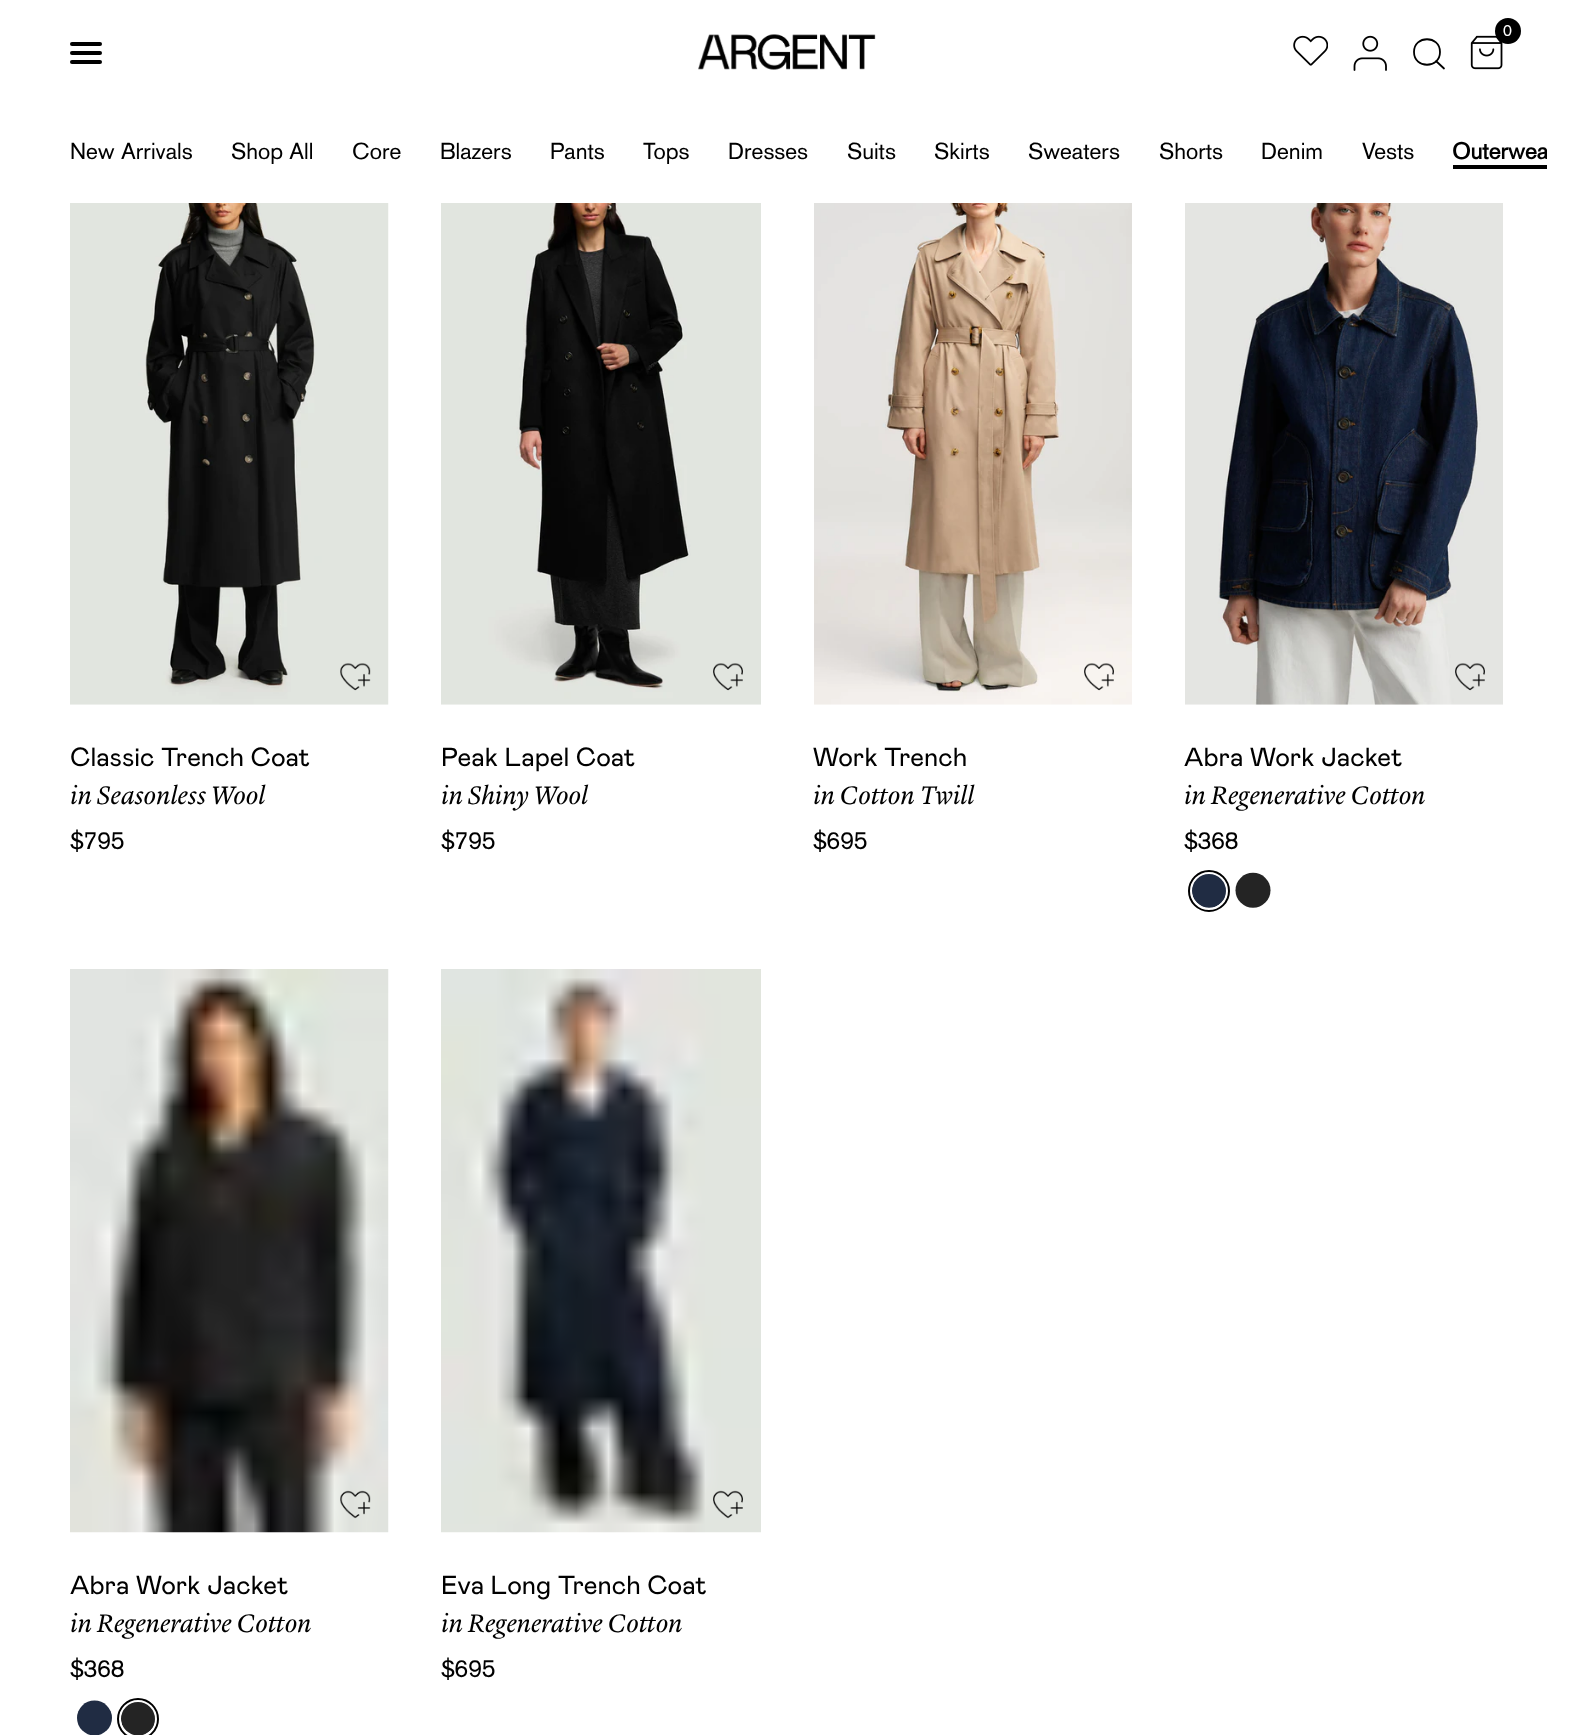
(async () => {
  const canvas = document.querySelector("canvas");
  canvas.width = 1573;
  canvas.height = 1735;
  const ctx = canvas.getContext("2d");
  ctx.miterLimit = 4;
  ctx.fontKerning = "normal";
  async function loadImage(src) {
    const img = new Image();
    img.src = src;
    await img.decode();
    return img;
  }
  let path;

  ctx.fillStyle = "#ffffff";
  ctx.fillRect(0, 0, 1573, 1735);
  ctx.drawImage(await loadImage("img/1.png"), 1470, 35, 33, 35);
  ctx.fillStyle = "#000000";
  ctx.beginPath();
  ctx.arc(1508, 31, 13, 0, Math.PI * 2);
  ctx.fill();
  ctx.drawImage(await loadImage("img/2.png"), 1293, 35, 35, 31);
  ctx.drawImage(await loadImage("img/3.png"), 1353, 35, 34, 36);
  path = new Path2D("M1436 61L1444 68.5M1440 52C1440 69 1414 69 1414 52C1414 35 1440 35 1440 52Z");
  ctx.strokeStyle = "#000000";
  ctx.lineWidth = 1.8;
  ctx.lineCap = "round";
  ctx.lineJoin = "round";
  ctx.stroke(path);
  ctx.beginPath();
  ctx.roundRect(70, 42, 32, 4, 2);
  ctx.fill();
  ctx.beginPath();
  ctx.roundRect(70, 51, 32, 4, 2);
  ctx.fill();
  ctx.beginPath();
  ctx.roundRect(70, 60, 32, 4, 2);
  ctx.fill();
  ctx.drawImage(await loadImage("img/4.png"), 698, 34, 178, 36);
  ctx.drawImage(await loadImage("img/9.png"), 814, 203, 318, 502);
  path = new Path2D("M1071 194H1088.5M1080 185.5V203");
  ctx.strokeStyle = "#e6e4e1";
  ctx.stroke(path);
  ctx.fillStyle = "#ffffff";
  ctx.fillRect(1070, 184, 20, 19);
  ctx.fillStyle = "#000000";
  ctx.fillRect(1453, 165, 94, 4);
  ctx.drawImage(await loadImage("img/5.png"), 70, 203, 319, 502);
  ctx.drawImage(await loadImage("img/6.png"), 340, 663, 31, 28);
  ctx.drawImage(await loadImage("img/7.png"), 441, 203, 320, 502);
  ctx.drawImage(await loadImage("img/8.png"), 713, 663, 30, 28);
  ctx.drawImage(await loadImage("img/10.png"), 1084, 663, 30, 28);
  ctx.drawImage(await loadImage("img/11.png"), 1185, 203, 318, 502);
  ctx.drawImage(await loadImage("img/12.png"), 1455, 663, 30, 28);
  ctx.drawImage(await loadImage("img/13.png"), 1192, 874, 34, 34);
  ctx.beginPath();
  ctx.arc(1209, 891, 19, 0, Math.PI * 2);
  ctx.strokeStyle = "#ffffff";
  ctx.lineWidth = 4;
  ctx.stroke();
  ctx.beginPath();
  ctx.arc(1209, 891, 20, 0, Math.PI * 2);
  ctx.strokeStyle = "#000000";
  ctx.lineWidth = 2;
  ctx.stroke();
  ctx.drawImage(await loadImage("img/14.png"), 1235, 872, 36, 36);
  ctx.drawImage(await loadImage("img/15.png"), 70, 969, 319, 564);
  ctx.drawImage(await loadImage("img/16.png"), 340, 1490, 31, 29);
  ctx.drawImage(await loadImage("img/17.png"), 77, 1700, 35, 35);
  ctx.drawImage(await loadImage("img/18.png"), 121, 1702, 34, 33);
  ctx.beginPath();
  ctx.arc(138, 1719, 19, 0, Math.PI * 2);
  ctx.strokeStyle = "#ffffff";
  ctx.lineWidth = 4;
  ctx.stroke();
  ctx.beginPath();
  ctx.arc(138, 1719, 20, 0, Math.PI * 2);
  ctx.strokeStyle = "#000000";
  ctx.lineWidth = 2;
  ctx.stroke();
  ctx.drawImage(await loadImage("img/19.png"), 441, 969, 320, 564);
  ctx.drawImage(await loadImage("img/20.png"), 713, 1490, 30, 29);
  ctx.font = "16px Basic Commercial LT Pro";
  ctx.fillStyle = "#ffffff";
  ctx.fillText("0", 1503, 36);
  ctx.font = "22.75px Basic Commercial LT Pro";
  ctx.fillStyle = "#000000";
  for (const [text, x, y] of [
    ["New Arrivals", 70, 159],
    ["Shop All", 231, 159],
    ["Core", 352, 159],
    ["Blazers", 440, 159],
    ["Pants", 550, 159],
    ["Tops", 643, 159],
    ["Dresses", 728, 159],
    ["Suits", 847, 159],
    ["Skirts", 934, 159],
    ["Sweaters", 1028, 159],
    ["Shorts", 1159, 159],
    ["Denim", 1261, 159],
    ["Vests", 1362, 159],
  ]) {
    ctx.fillText(text, x, y);
  }
  ctx.save();
  ctx.beginPath();
  ctx.rect(26, 102, 1521, 101);
  ctx.clip();
  ctx.font = "bold 22.75px Basic Commercial LT Pro";
  ctx.fillText("Outerwea", 1452, 159);
  ctx.restore();
  ctx.font = "26.25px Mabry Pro";
  ctx.fillText("Classic Trench Coat", 70, 766);
  ctx.font = "italic 26.25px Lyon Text";
  ctx.fillText("in Seasonless Wool", 70, 804);
  ctx.font = "24.5px Basic Commercial LT Pro";
  ctx.fillText("$795", 70, 849);
  ctx.font = "26.25px Mabry Pro";
  ctx.fillText("Peak Lapel Coat", 441, 766);
  ctx.font = "italic 26.25px Lyon Text";
  ctx.fillText("in Shiny Wool", 441, 804);
  ctx.font = "24.5px Basic Commercial LT Pro";
  ctx.fillText("$795", 441, 849);
  ctx.font = "26.25px Mabry Pro";
  ctx.fillText("Work Trench", 813, 766);
  ctx.font = "italic 26.25px Lyon Text";
  ctx.fillText("in Cotton Twill", 813, 804);
  ctx.font = "24.5px Basic Commercial LT Pro";
  ctx.fillText("$695", 813, 849);
  ctx.font = "26.25px Mabry Pro";
  ctx.fillText("Abra Work Jacket", 1184, 766);
  ctx.font = "italic 26.25px Lyon Text";
  ctx.fillText("in Regenerative Cotton", 1184, 804);
  ctx.font = "24.5px Basic Commercial LT Pro";
  ctx.fillText("$368", 1184, 849);
  ctx.font = "26.25px Mabry Pro";
  ctx.fillText("Abra Work Jacket", 70, 1594);
  ctx.font = "italic 26.25px Lyon Text";
  ctx.fillText("in Regenerative Cotton", 70, 1632);
  ctx.font = "24.5px Basic Commercial LT Pro";
  ctx.fillText("$368", 70, 1677);
  ctx.font = "26.25px Mabry Pro";
  ctx.fillText("Eva Long Trench Coat", 441, 1594);
  ctx.font = "italic 26.25px Lyon Text";
  ctx.fillText("in Regenerative Cotton", 441, 1632);
  ctx.font = "24.5px Basic Commercial LT Pro";
  ctx.fillText("$695", 441, 1677);
})();
